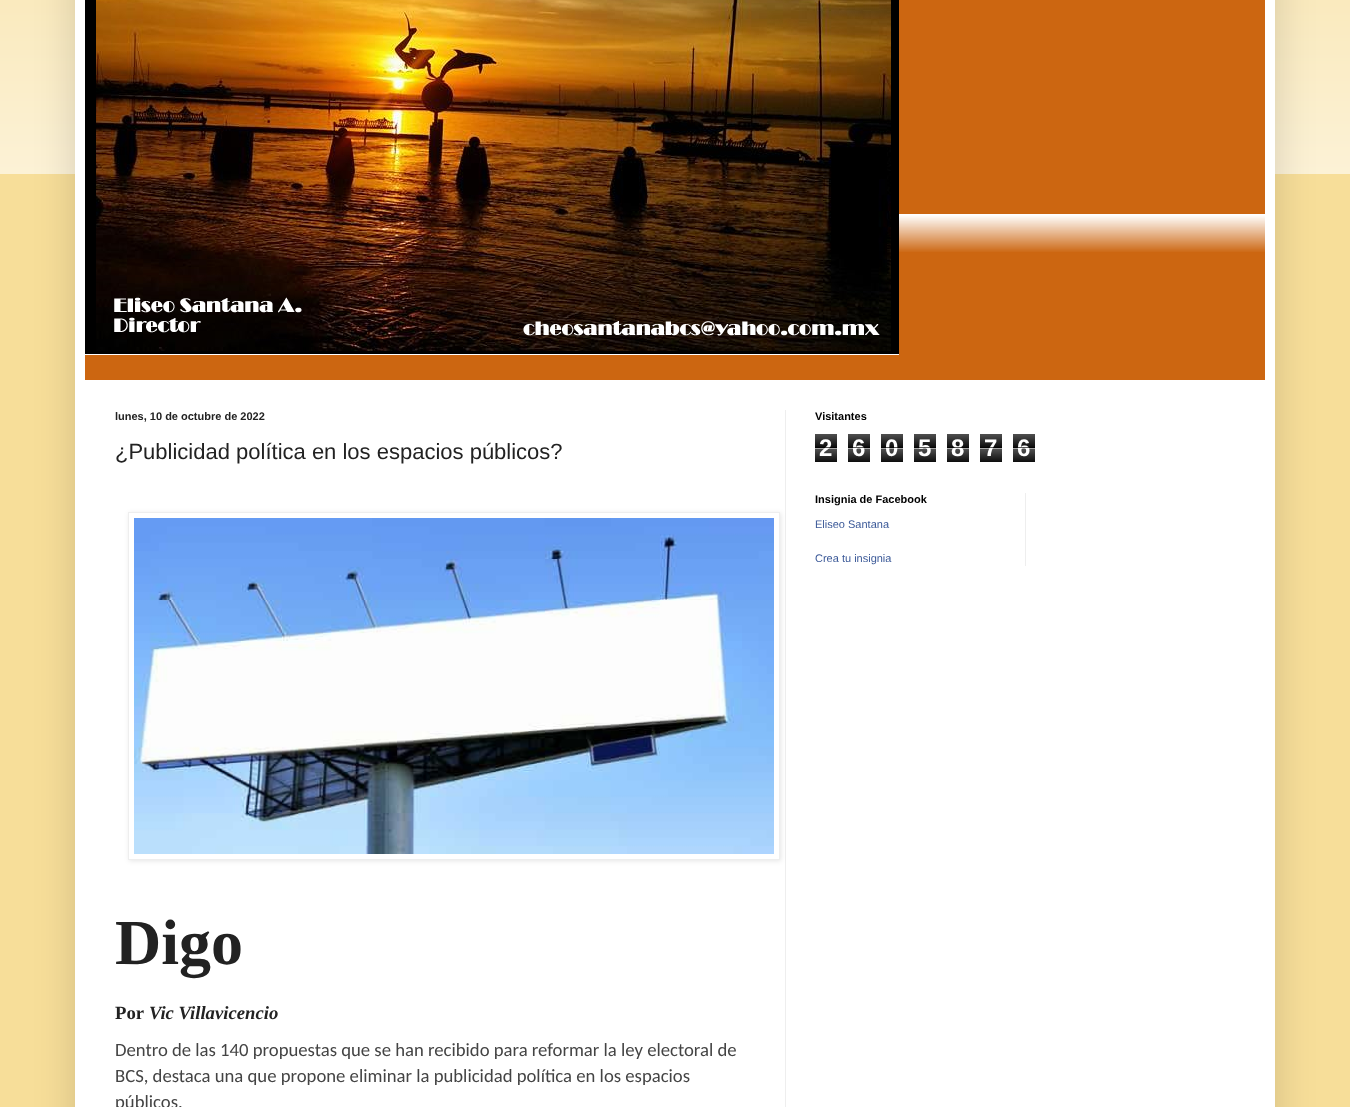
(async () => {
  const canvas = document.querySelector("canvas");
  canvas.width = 1350;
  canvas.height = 1107;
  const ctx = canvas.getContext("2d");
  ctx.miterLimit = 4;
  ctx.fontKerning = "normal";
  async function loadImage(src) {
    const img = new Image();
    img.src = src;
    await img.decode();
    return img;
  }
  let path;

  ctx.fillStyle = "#f7de99";
  ctx.fillRect(0, 0, 1350, 1107);
  ctx.drawImage(await loadImage("img/1.png"), 0, 0, 1350, 174);
  ctx.fillStyle = "rgba(0, 0, 0, 0.15)";
  ctx.filter = "blur(20px)";
  ctx.beginPath();
  ctx.rect(75, -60, 1200, 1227);
  ctx.fill();
  ctx.filter = "none";
  ctx.fillStyle = "#ffffff";
  ctx.fillRect(75, 0, 1200, 1107);
  ctx.fillStyle = "#cc6611";
  ctx.fillRect(85, 0, 1180, 380);
  ctx.drawImage(await loadImage("img/2.png"), 899, 214, 366, 38);
  ctx.drawImage(await loadImage("img/3.png"), 85, 0, 814, 355);
  ctx.fillStyle = "#eeeeee";
  ctx.fillRect(785, 410, 1, 697);
  ctx.save();
  path = new Path2D("M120 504H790V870H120ZM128 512H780V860H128Z");
  ctx.clip(path, "evenodd");
  ctx.fillStyle = "rgba(0, 0, 0, 0.1)";
  ctx.filter = "blur(2.5px)";
  ctx.beginPath();
  ctx.rect(129, 513, 652, 348);
  ctx.fill();
  ctx.filter = "none";
  ctx.restore();
  ctx.strokeStyle = "#eeeeee";
  ctx.strokeRect(128.5, 512.5, 651, 347);
  ctx.drawImage(await loadImage("img/4.png"), 134, 518, 640, 336);
  ctx.drawImage(await loadImage("img/5.png"), 815, 434, 22, 28);
  ctx.drawImage(await loadImage("img/5.png"), 848, 434, 22, 28);
  ctx.drawImage(await loadImage("img/5.png"), 881, 434, 22, 28);
  ctx.drawImage(await loadImage("img/5.png"), 914, 434, 22, 28);
  ctx.drawImage(await loadImage("img/5.png"), 947, 434, 22, 28);
  ctx.drawImage(await loadImage("img/5.png"), 980, 434, 22, 28);
  ctx.drawImage(await loadImage("img/5.png"), 1013, 434, 22, 28);
  ctx.fillRect(1025, 493, 1, 73);
  ctx.font = "bold 11px Liberation Sans";
  ctx.fillStyle = "#222222";
  ctx.fillText("lunes, 10 de octubre de 2022", 115, 420);
  ctx.font = "22px Liberation Sans";
  ctx.fillText("¿Publicidad política en los espacios públicos?", 115, 459);
  ctx.font = "bold 64px Liberation Serif";
  ctx.fillText("Digo", 115, 964);
  ctx.font = "bold 18.7px Liberation Serif";
  ctx.fillText("Por", 115, 1019);
  ctx.font = "italic bold 18.7px Liberation Serif";
  ctx.fillText("Vic Villavicencio", 149, 1019);
  ctx.font = "18.7px Carlito";
  ctx.fillStyle = "#444444";
  for (const [text, x, y] of [
    ["Dentro de las 140 propuestas que se han recibido para reformar la ley electoral de", 115, 1056],
    ["BCS, destaca una que propone eliminar la publicidad política en los espacios", 115, 1082],
    ["públicos.", 115, 1108],
  ]) {
    ctx.fillText(text, x, y);
  }
  ctx.font = "bold 11px Liberation Sans";
  ctx.fillStyle = "#000000";
  ctx.fillText("Visitantes", 815, 420);
  ctx.font = "bold 24px Liberation Sans";
  ctx.fillStyle = "#ffffff";
  ctx.fillText("2", 819, 456);
  ctx.fillStyle = "rgba(0, 0, 0, 0.65)";
  ctx.fillRect(815, 447, 22, 1);
  ctx.fillStyle = "rgba(255, 255, 255, 0.65)";
  ctx.fillRect(815, 448, 22, 1);
  ctx.fillStyle = "#ffffff";
  ctx.fillText("6", 852, 456);
  ctx.fillStyle = "rgba(0, 0, 0, 0.65)";
  ctx.fillRect(848, 447, 22, 1);
  ctx.fillStyle = "rgba(255, 255, 255, 0.65)";
  ctx.fillRect(848, 448, 22, 1);
  ctx.fillStyle = "#ffffff";
  ctx.fillText("0", 885, 456);
  ctx.fillStyle = "rgba(0, 0, 0, 0.65)";
  ctx.fillRect(881, 447, 22, 1);
  ctx.fillStyle = "rgba(255, 255, 255, 0.65)";
  ctx.fillRect(881, 448, 22, 1);
  ctx.fillStyle = "#ffffff";
  ctx.fillText("5", 918, 456);
  ctx.fillStyle = "rgba(0, 0, 0, 0.65)";
  ctx.fillRect(914, 447, 22, 1);
  ctx.fillStyle = "rgba(255, 255, 255, 0.65)";
  ctx.fillRect(914, 448, 22, 1);
  ctx.fillStyle = "#ffffff";
  ctx.fillText("8", 951, 456);
  ctx.fillStyle = "rgba(0, 0, 0, 0.65)";
  ctx.fillRect(947, 447, 22, 1);
  ctx.fillStyle = "rgba(255, 255, 255, 0.65)";
  ctx.fillRect(947, 448, 22, 1);
  ctx.fillStyle = "#ffffff";
  ctx.fillText("7", 984, 456);
  ctx.fillStyle = "rgba(0, 0, 0, 0.65)";
  ctx.fillRect(980, 447, 22, 1);
  ctx.fillStyle = "rgba(255, 255, 255, 0.65)";
  ctx.fillRect(980, 448, 22, 1);
  ctx.fillStyle = "#ffffff";
  ctx.fillText("6", 1017, 456);
  ctx.fillStyle = "rgba(0, 0, 0, 0.65)";
  ctx.fillRect(1013, 447, 22, 1);
  ctx.fillStyle = "rgba(255, 255, 255, 0.65)";
  ctx.fillRect(1013, 448, 22, 1);
  ctx.font = "bold 11px Liberation Sans";
  ctx.fillStyle = "#000000";
  ctx.fillText("Insignia de Facebook", 815, 503);
  ctx.font = "11px Liberation Sans";
  ctx.fillStyle = "#3b5998";
  ctx.fillText("Eliseo Santana", 815, 528);
  ctx.fillText("Crea tu insignia", 815, 562);
})();
